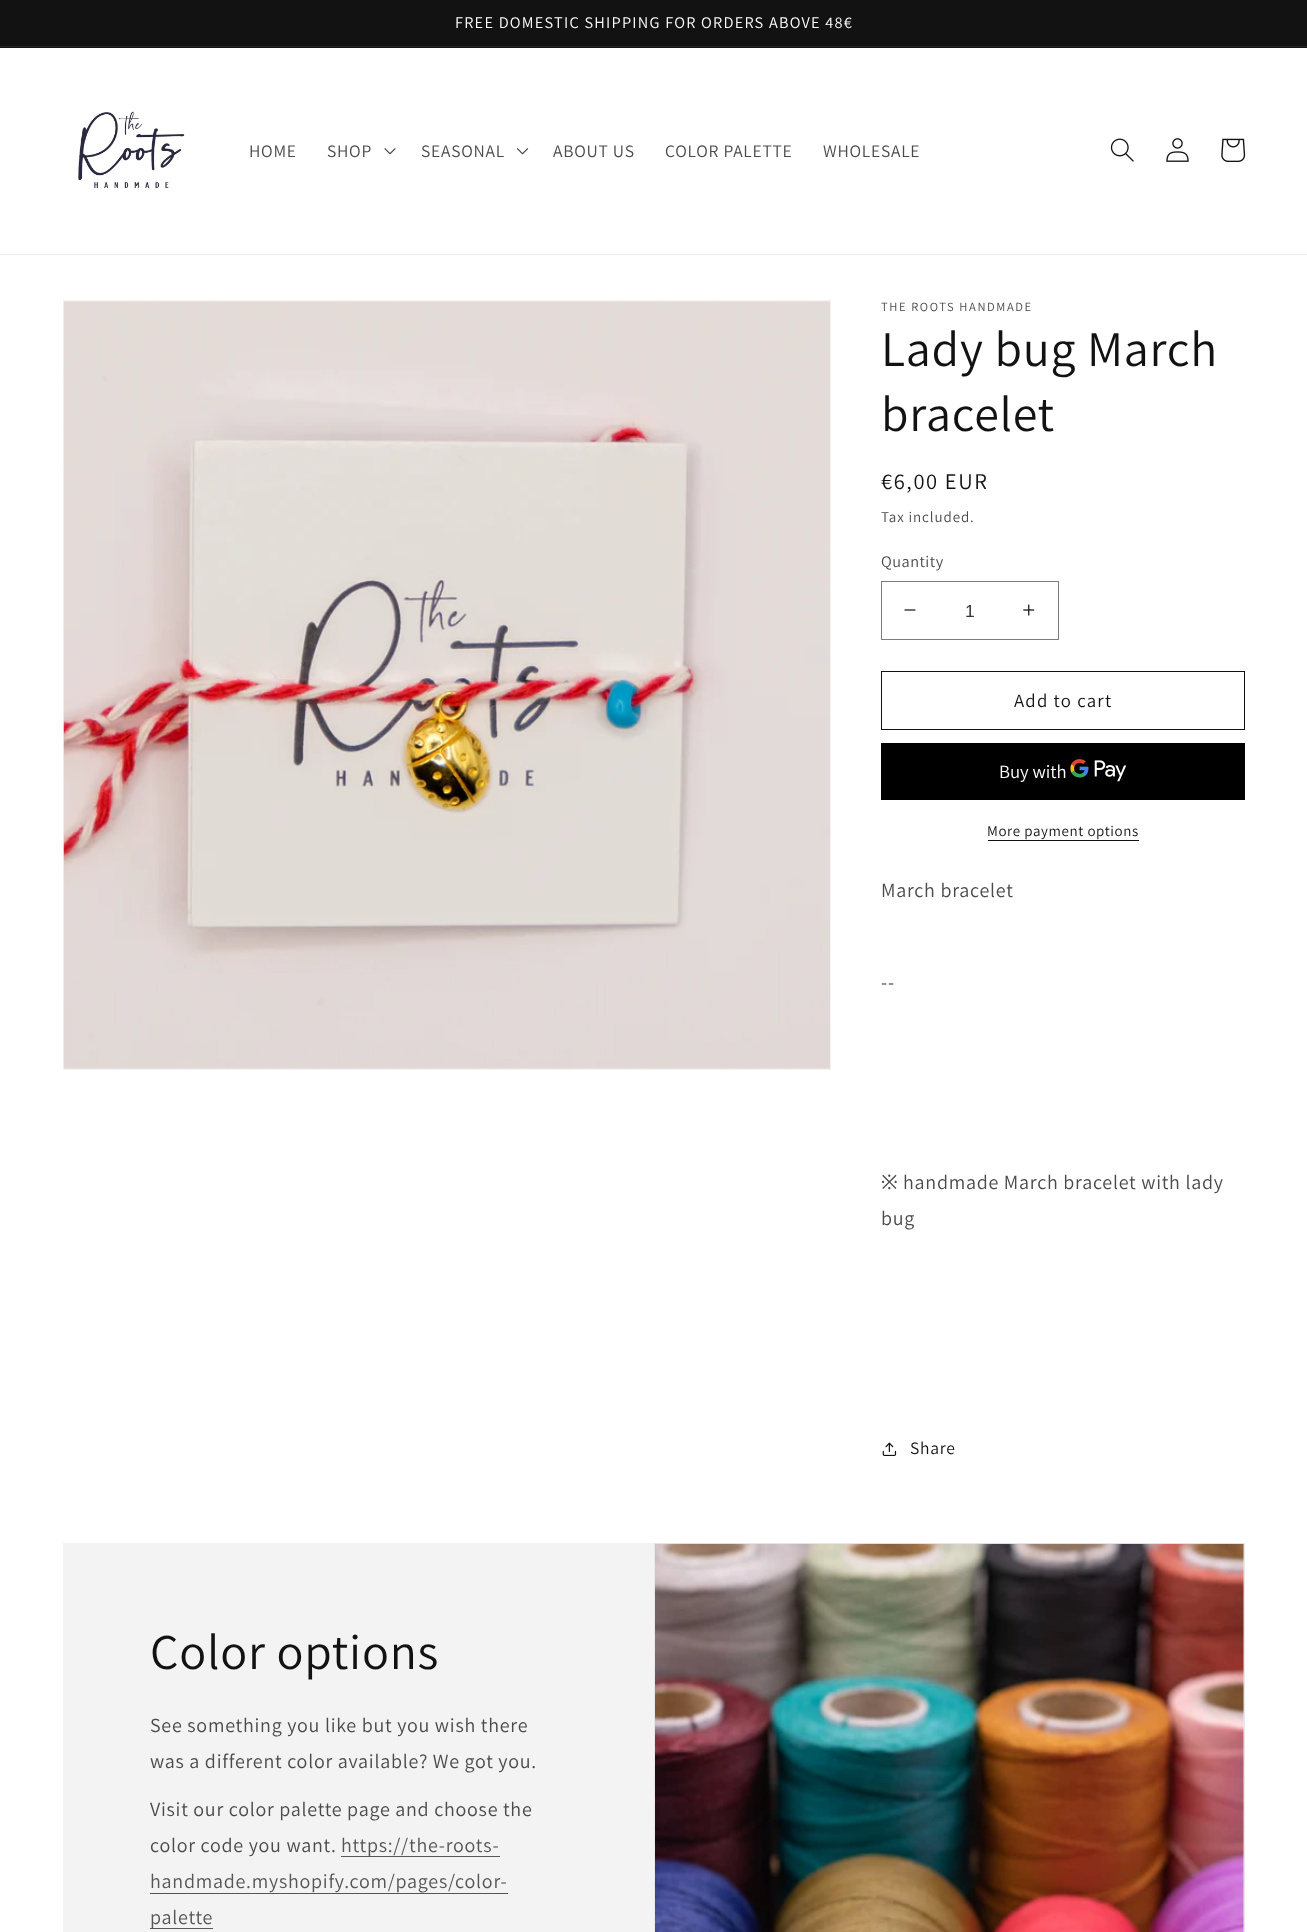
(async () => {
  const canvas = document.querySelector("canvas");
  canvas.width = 1307;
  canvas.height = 1932;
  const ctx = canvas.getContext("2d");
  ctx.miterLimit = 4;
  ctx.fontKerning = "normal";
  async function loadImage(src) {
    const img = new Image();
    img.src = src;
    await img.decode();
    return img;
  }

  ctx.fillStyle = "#ffffff";
  ctx.fillRect(0, 0, 1307, 1932);
  for (const [x, y, w, h, color] of [
    [0, 0, 1307, 48, "#121212"],
    [0, 46, 1307, 1, "#252525"],
    [0, 254, 1307, 1, "#ececec"],
  ]) {
    ctx.fillStyle = color;
    ctx.fillRect(x, y, w, h);
  }
  ctx.drawImage(await loadImage("img/1.png"), 78, 111, 107, 77);
  ctx.drawImage(await loadImage("img/2.png"), 384, 148, 12, 7);
  ctx.drawImage(await loadImage("img/3.png"), 516, 148, 13, 7);
  ctx.drawImage(await loadImage("img/4.png"), 1110, 138, 24, 24);
  ctx.drawImage(await loadImage("img/5.png"), 1166, 138, 23, 24);
  ctx.drawImage(await loadImage("img/6.png"), 1221, 138, 25, 24);
  ctx.strokeStyle = "#f3f3f3";
  ctx.strokeRect(63.5, 300.5, 767, 769);
  ctx.drawImage(await loadImage("img/7.png"), 63, 301, 767, 768);
  ctx.drawImage(await loadImage("img/8.png"), 904, 609, 12, 2);
  ctx.drawImage(await loadImage("img/9.png"), 1023, 604, 12, 12);
  ctx.strokeStyle = "#7d7d7d";
  ctx.strokeRect(881.5, 581.5, 177, 58);
  ctx.strokeStyle = "#121212";
  ctx.strokeRect(881.5, 671.5, 363, 58);
  ctx.fillStyle = "#000000";
  ctx.fillRect(881, 743, 364, 57);
  ctx.drawImage(await loadImage("img/10.png"), 1070, 759, 56, 23);
  ctx.fillStyle = "#121212";
  ctx.fillRect(988, 840, 151, 1);
  ctx.drawImage(await loadImage("img/11.png"), 882, 1442, 15, 14);
  for (const [x, y, w, h, color] of [
    [63, 1543, 591, 389, "#f3f3f3"],
    [341, 1856, 159, 1, "#565656"],
    [150, 1893, 358, 1, "#565656"],
    [150, 1928, 63, 1, "#565656"],
    [1243, 1544, 1, 388, "#f3f3f3"],
  ]) {
    ctx.fillStyle = color;
    ctx.fillRect(x, y, w, h);
  }
  ctx.strokeStyle = "#e8e8e8";
  ctx.strokeRect(654.5, 1543.5, 590, 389);
  ctx.drawImage(await loadImage("img/12.png"), 655, 1543, 589, 389);
  ctx.letterSpacing = "1.25px";
  ctx.font = "16.25px Assistant";
  ctx.fillStyle = "#ffffff";
  ctx.fillText("FREE DOMESTIC SHIPPING FOR ORDERS ABOVE 48€", 455, 28);
  ctx.letterSpacing = "0.75px";
  ctx.font = "17.5px Assistant";
  ctx.fillStyle = "#4a4a4a";
  for (const [text, x, y] of [
    ["HOME", 249, 157],
    ["SHOP", 327, 157],
    ["SEASONAL", 421, 157],
    ["ABOUT US", 553, 157],
    ["COLOR PALETTE", 665, 157],
    ["WHOLESALE", 823, 157],
  ]) {
    ctx.fillText(text, x, y);
  }
  ctx.letterSpacing = "1.6px";
  ctx.font = "12.5px Assistant";
  ctx.fillText("THE ROOTS HANDMADE", 881, 311);
  ctx.letterSpacing = "0.75px";
  ctx.font = "50px Assistant";
  ctx.fillStyle = "#121212";
  ctx.fillText("Lady bug March", 881, 366);
  ctx.fillText("bracelet", 881, 431);
  ctx.letterSpacing = "1.6px";
  ctx.font = "22.5px Assistant";
  ctx.fillText("€6,00 EUR", 881, 489);
  ctx.letterSpacing = "0.9px";
  ctx.font = "15px Assistant";
  ctx.fillStyle = "#4a4a4a";
  ctx.fillText("Tax included.", 881, 522);
  ctx.letterSpacing = "0.5px";
  ctx.font = "16.25px Assistant";
  ctx.fillText("Quantity", 881, 567);
  ctx.letterSpacing = "0px";
  ctx.font = "17.5px Liberation Sans";
  ctx.fillStyle = "#363636";
  ctx.fillText("1", 965, 617);
  ctx.letterSpacing = "1.25px";
  ctx.font = "18.75px Assistant";
  ctx.fillStyle = "#121212";
  ctx.fillText("Add to cart", 1014, 707);
  ctx.letterSpacing = "0px";
  ctx.fillStyle = "#ffffff";
  ctx.fillText("Buy with", 999, 778);
  ctx.letterSpacing = "0.6px";
  ctx.font = "15px Assistant";
  ctx.fillStyle = "#121212";
  ctx.fillText("More payment options", 987, 836);
  ctx.letterSpacing = "0.75px";
  ctx.font = "20px Assistant";
  ctx.fillStyle = "#4a4a4a";
  ctx.fillText("March bracelet", 881, 897);
  ctx.fillText("--", 881, 989);
  ctx.font = "20px Noto Sans";
  ctx.fillText("※", 881, 1189);
  ctx.font = "20px Assistant";
  ctx.fillText("handmade March bracelet with lady", 903, 1189);
  ctx.fillText("bug", 881, 1225);
  ctx.font = "17.5px Assistant";
  ctx.fillStyle = "#121212";
  ctx.fillText("Share", 910, 1454);
  ctx.font = "50px Assistant";
  ctx.fillText("Color options", 150, 1669);
  ctx.font = "20px Assistant";
  ctx.fillStyle = "#4a4a4a";
  for (const [text, x, y] of [
    ["See something you like but you wish there", 150, 1732],
    ["was a different color available? We got you.", 150, 1768],
    ["Visit our color palette page and choose the", 150, 1816],
    ["color code you want.", 150, 1852],
  ]) {
    ctx.fillText(text, x, y);
  }
  ctx.fillStyle = "#555555";
  for (const [text, x, y] of [
    ["https://the-roots-", 341, 1852],
    ["handmade.myshopify.com/pages/color-", 150, 1888],
    ["palette", 150, 1924],
  ]) {
    ctx.fillText(text, x, y);
  }
})();
